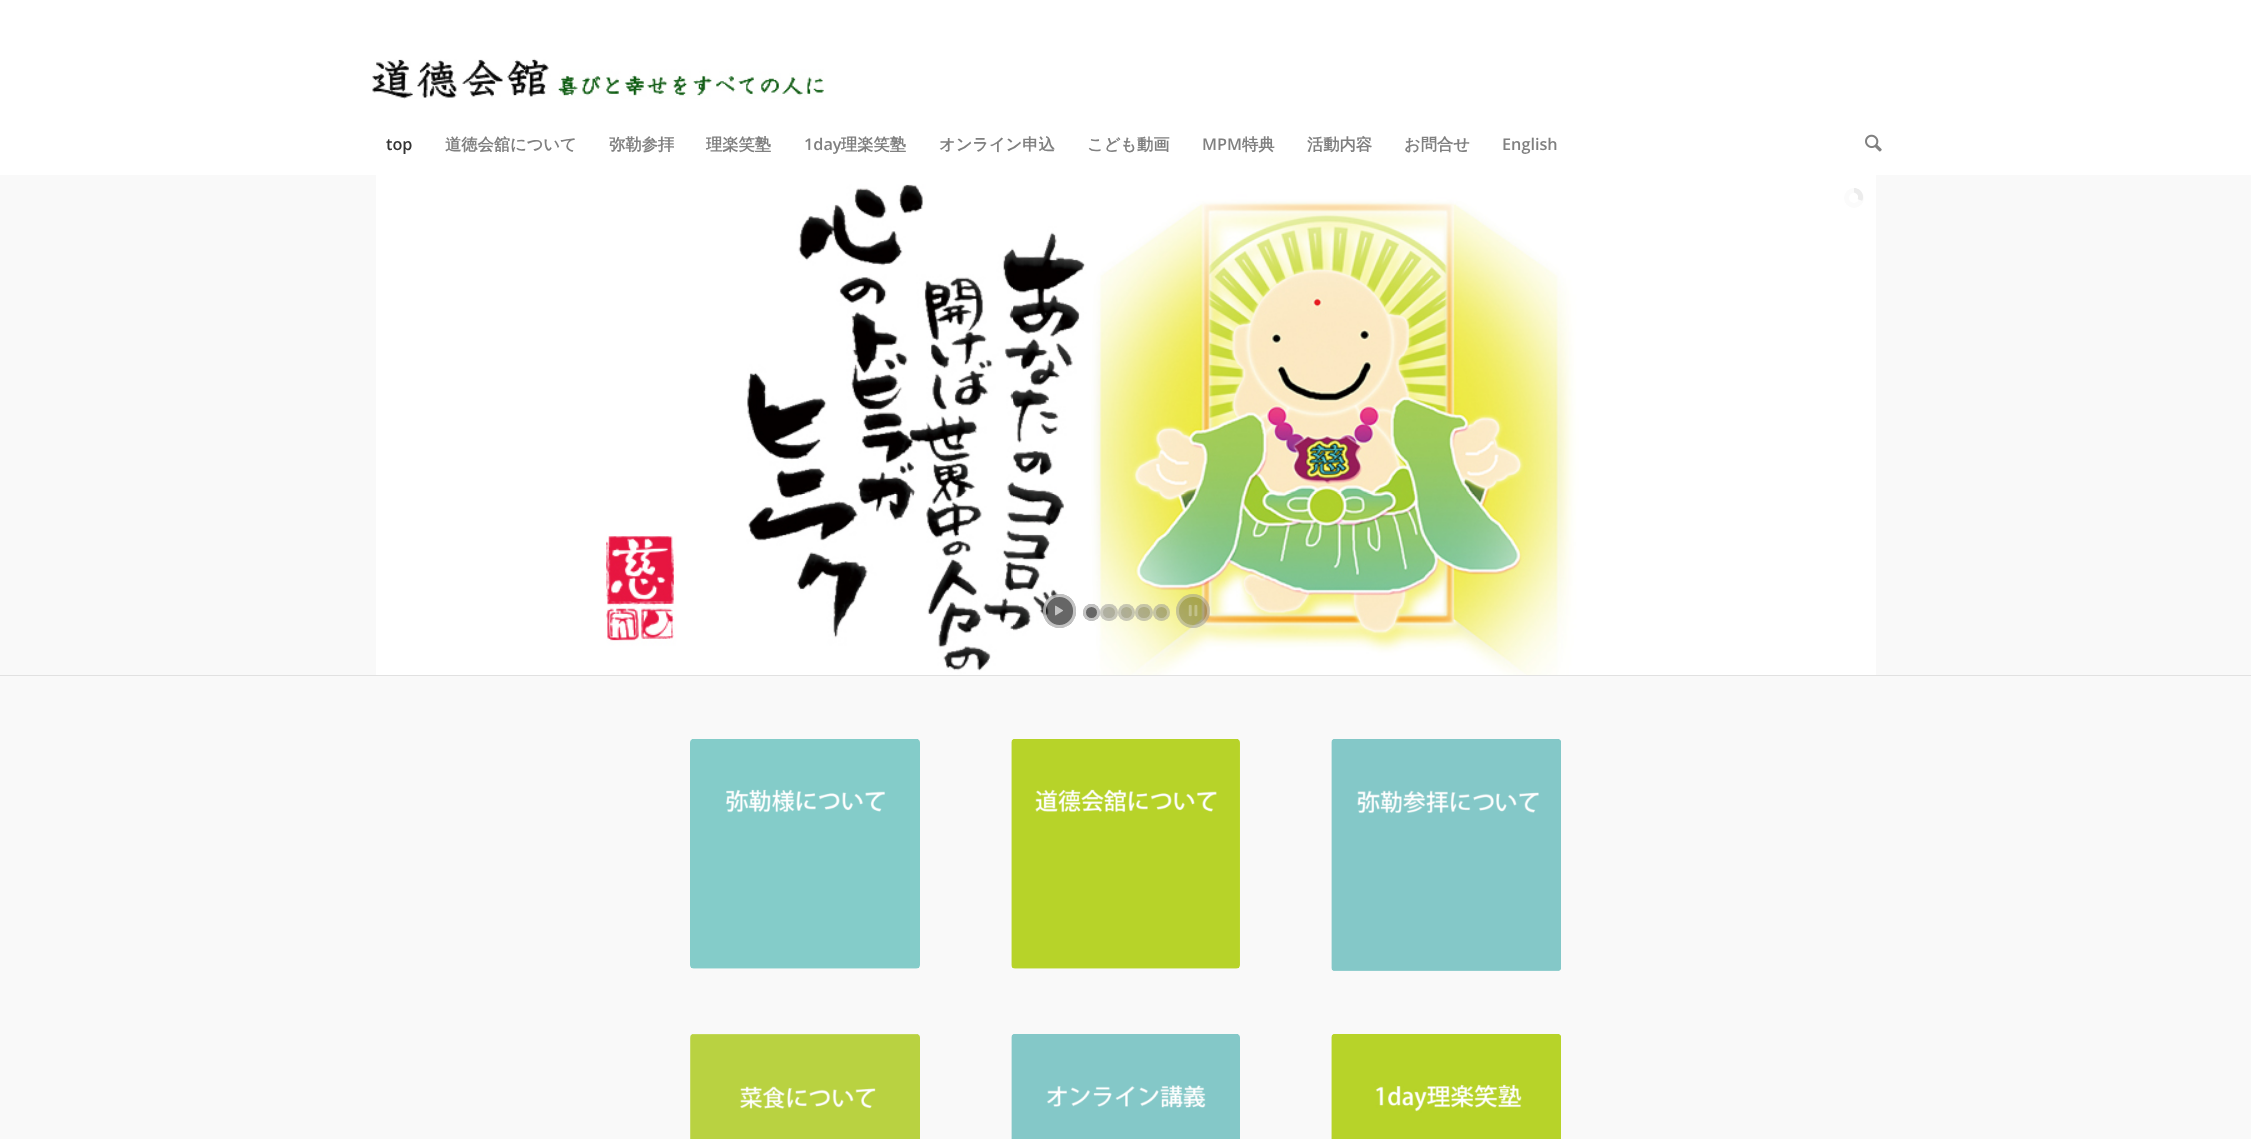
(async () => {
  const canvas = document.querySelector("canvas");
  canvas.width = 2251;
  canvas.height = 1139;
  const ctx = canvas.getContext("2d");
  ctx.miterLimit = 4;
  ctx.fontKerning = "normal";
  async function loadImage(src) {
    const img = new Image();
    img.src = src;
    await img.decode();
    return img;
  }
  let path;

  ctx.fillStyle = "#ffffff";
  ctx.fillRect(0, 0, 2251, 1139);
  ctx.drawImage(await loadImage("img/1.png"), 372, 58, 452, 41);
  ctx.drawImage(await loadImage("img/2.png"), 1865, 134, 17, 18);
  ctx.fillStyle = "#f9f9f9";
  ctx.fillRect(0, 175, 2251, 500);
  ctx.drawImage(await loadImage("img/3.png"), 376, 175, 1500, 500);
  ctx.beginPath();
  ctx.arc(1854, 198, 7.5, 0, Math.PI * 2);
  ctx.strokeStyle = "#fbfbfb";
  ctx.lineWidth = 5;
  ctx.stroke();
  ctx.save();
  ctx.beginPath();
  ctx.rect(1854, 188, 10, 20);
  ctx.clip();
  path = new Path2D("M1866 191.5L1862.5 201L1843.5 194L1847 185Z");
  ctx.clip(path);
  path = new Path2D("M1860 200C1857 209.5 1843 204.5 1846 195C1849.5 185.5 1863.5 190.5 1860 200Z");
  ctx.strokeStyle = "#ececec";
  ctx.stroke(path);
  ctx.restore();
  ctx.fillStyle = "rgba(0, 0, 0, 0.6)";
  ctx.beginPath();
  ctx.roundRect(1043, 594, 33, 34, 16.5);
  ctx.fill();
  ctx.beginPath();
  ctx.roundRect(1044.5, 595.5, 30, 31, 15);
  ctx.strokeStyle = "rgba(255, 255, 255, 0.6)";
  ctx.lineWidth = 3;
  ctx.stroke();
  ctx.drawImage(await loadImage("img/4.png"), 1055, 605, 8, 11);
  ctx.beginPath();
  ctx.arc(1091.5, 612.5, 8.5, 0, Math.PI * 2);
  ctx.fill();
  ctx.beginPath();
  ctx.arc(1091.5, 612.5, 7, 0, Math.PI * 2);
  ctx.stroke();
  ctx.fillStyle = "rgba(0, 0, 0, 0.3)";
  ctx.beginPath();
  ctx.roundRect(1100, 604, 18, 17, 8.5);
  ctx.fill();
  ctx.beginPath();
  ctx.roundRect(1101.5, 605.5, 15, 14, 7);
  ctx.strokeStyle = "rgba(255, 255, 255, 0.3)";
  ctx.stroke();
  ctx.beginPath();
  ctx.arc(1126.5, 612.5, 8.5, 0, Math.PI * 2);
  ctx.fill();
  ctx.beginPath();
  ctx.arc(1126.5, 612.5, 7, 0, Math.PI * 2);
  ctx.stroke();
  ctx.beginPath();
  ctx.roundRect(1135, 604, 18, 17, 8.5);
  ctx.fill();
  ctx.beginPath();
  ctx.roundRect(1136.5, 605.5, 15, 14, 7);
  ctx.stroke();
  ctx.beginPath();
  ctx.arc(1161.5, 612.5, 8.5, 0, Math.PI * 2);
  ctx.fill();
  ctx.beginPath();
  ctx.arc(1161.5, 612.5, 7, 0, Math.PI * 2);
  ctx.stroke();
  ctx.beginPath();
  ctx.arc(1193, 611, 17, 0, Math.PI * 2);
  ctx.fill();
  ctx.beginPath();
  ctx.arc(1193, 611, 15.5, 0, Math.PI * 2);
  ctx.stroke();
  ctx.drawImage(await loadImage("img/5.png"), 1188, 604, 10, 13);
  ctx.fillStyle = "#f9f9f9";
  ctx.fillRect(0, 676, 2251, 463);
  ctx.fillStyle = "#e1e1e1";
  ctx.fillRect(0, 675, 2251, 1);
  ctx.drawImage(await loadImage("img/6.png"), 690, 739, 230, 230);
  ctx.drawImage(await loadImage("img/7.png"), 1011, 739, 229, 230);
  ctx.drawImage(await loadImage("img/8.png"), 1331, 739, 230, 232);
  ctx.drawImage(await loadImage("img/9.png"), 690, 1034, 230, 105);
  ctx.drawImage(await loadImage("img/10.png"), 1011, 1034, 229, 105);
  ctx.drawImage(await loadImage("img/11.png"), 1331, 1034, 230, 105);
  ctx.font = "600 16.25px Open Sans";
  ctx.fillStyle = "#333333";
  ctx.fillText("top", 386, 150);
  ctx.font = "bold 16.25px WenQuanYi Zen Hei";
  ctx.fillStyle = "#808080";
  for (const [text, x, y] of [
    ["道徳会舘について", 445, 150],
    ["弥勒参拝", 609, 150],
    ["理楽笑塾", 706, 150],
  ]) {
    ctx.fillText(text, x, y);
  }
  ctx.font = "600 16.25px Open Sans";
  ctx.fillText("1day", 804, 150);
  ctx.font = "bold 16.25px WenQuanYi Zen Hei";
  for (const [text, x, y] of [
    ["理楽笑塾", 841, 150],
    ["オンライン申込", 939, 150],
    ["こども動画", 1087, 150],
  ]) {
    ctx.fillText(text, x, y);
  }
  ctx.font = "600 16.25px Open Sans";
  ctx.fillText("MPM", 1202, 150);
  ctx.font = "bold 16.25px WenQuanYi Zen Hei";
  for (const [text, x, y] of [
    ["特典", 1242, 150],
    ["活動内容", 1307, 150],
    ["お問合せ", 1404, 150],
  ]) {
    ctx.fillText(text, x, y);
  }
  ctx.font = "600 16.25px Open Sans";
  ctx.fillText("English", 1502, 150);
})();
